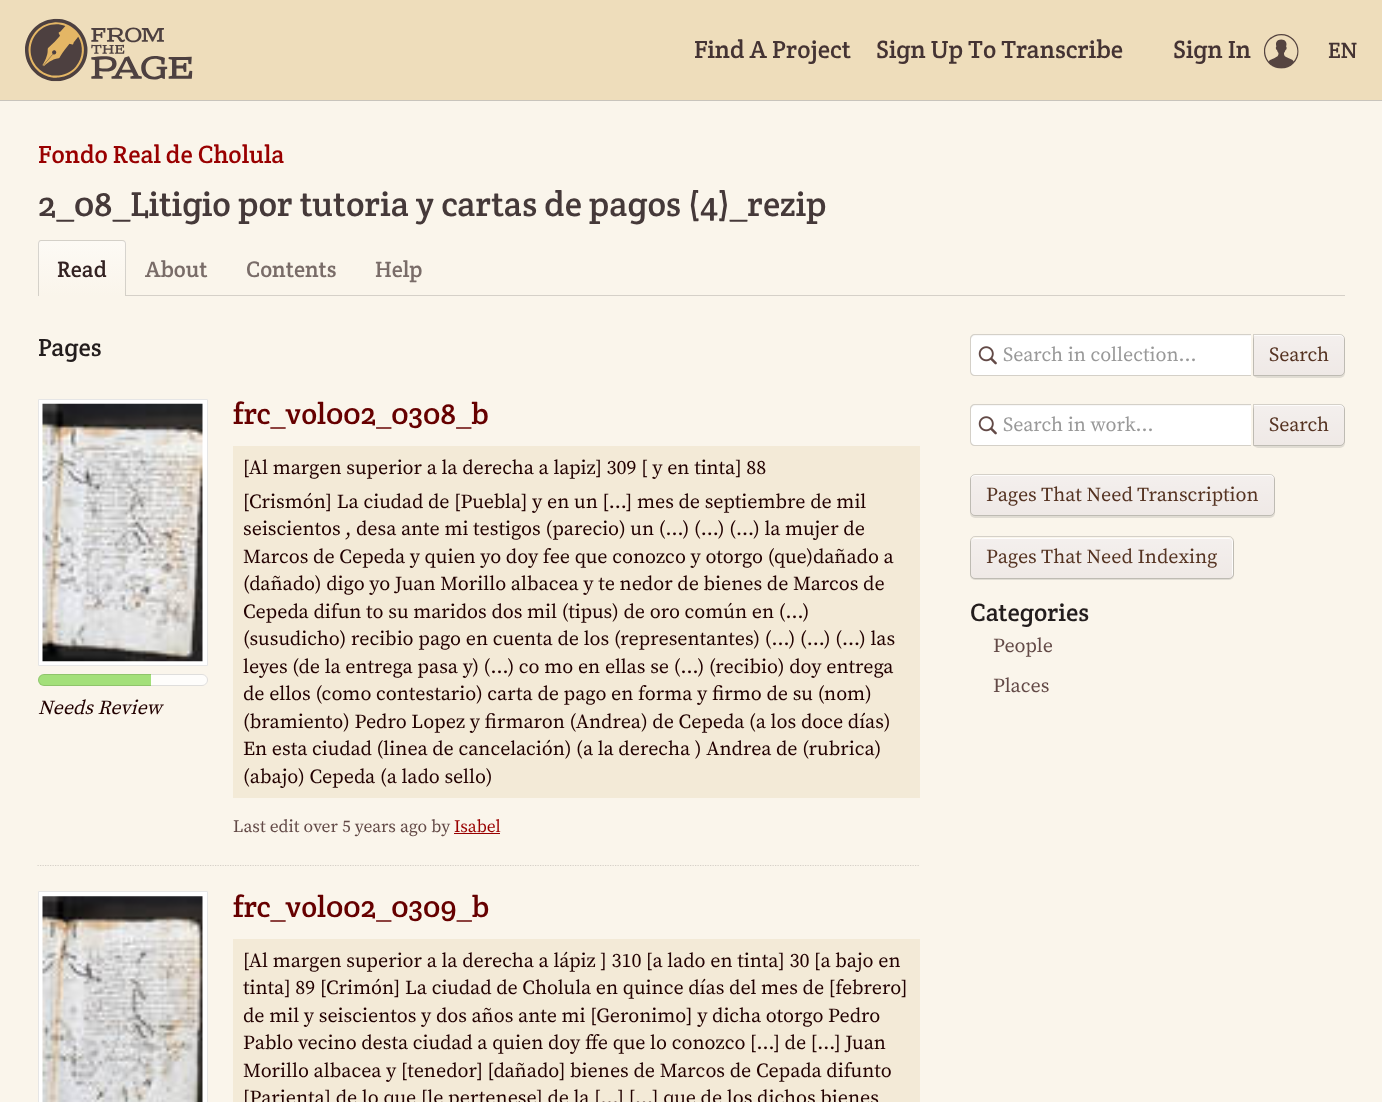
(async () => {
  const canvas = document.querySelector("canvas");
  canvas.width = 1382;
  canvas.height = 1102;
  const ctx = canvas.getContext("2d");
  ctx.miterLimit = 4;
  ctx.fontKerning = "normal";
  async function loadImage(src) {
    const img = new Image();
    img.src = src;
    await img.decode();
    return img;
  }
  let gradient, path;

  ctx.fillStyle = "#faf5eb";
  ctx.fillRect(0, 0, 1382, 1102);
  ctx.fillStyle = "#c8c4bc";
  path = new Path2D("M0 100V101H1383V1H1382V100Z");
  ctx.fill(path);
  ctx.fillStyle = "#eeddbb";
  ctx.fillRect(0, 0, 1382, 100);
  ctx.drawImage(await loadImage("img/1.png"), 25, 18, 168, 64);
  ctx.drawImage(await loadImage("img/2.png"), 1264, 34, 35, 35);
  ctx.fillStyle = "#d5d0c8";
  ctx.fillRect(126, 295, 1219, 1);
  ctx.save();
  ctx.beginPath();
  ctx.roundRect(38, 240, 88, 56, [4, 4, 0, 0]);
  ctx.clip();
  gradient = ctx.createLinearGradient(82, 241, 82, 296);
  gradient.addColorStop(0, "#fdfaf5");
  gradient.addColorStop(1, "#faf5eb");
  ctx.fillStyle = gradient;
  ctx.fillRect(38, 241, 88, 55);
  ctx.restore();
  ctx.fillStyle = "rgba(0, 0, 0, 0.15)";
  path = new Path2D("M41 240H122C125 240 126 242 126 244V296H38V244C38 242 39 240 41 240ZM41 241H122C124 241 125 242 125 244V296H39V244C39 242 40 241 41 241Z");
  ctx.fill(path, "evenodd");
  path = new Path2D("M37.5 865.5H920");
  ctx.strokeStyle = "#d5d0c8";
  ctx.lineWidth = 1.2;
  ctx.setLineDash([1.25, 1.25]);
  ctx.stroke(path);
  ctx.fillStyle = "#ffffff";
  ctx.beginPath();
  ctx.rect(38.5, 399.5, 169, 266);
  ctx.fill();
  ctx.strokeStyle = "#e6e6e6";
  ctx.lineWidth = 1;
  ctx.setLineDash([]);
  ctx.stroke();
  ctx.drawImage(await loadImage("img/3.png"), 42, 403, 161, 259);
  ctx.fillStyle = "#fefdfb";
  ctx.beginPath();
  ctx.roundRect(38, 674, 170, 12, 6);
  ctx.fill();
  ctx.fillStyle = "#a3e07a";
  ctx.beginPath();
  ctx.roundRect(38, 674, 113, 12, [6, 0, 0, 6]);
  ctx.fill();
  ctx.beginPath();
  ctx.roundRect(38.5, 674.5, 169, 11, 5.5);
  ctx.strokeStyle = "rgba(0, 0, 0, 0.12)";
  ctx.stroke();
  ctx.fillStyle = "#f3ead7";
  ctx.fillRect(233, 446, 687, 352);
  ctx.fillStyle = "#990000";
  ctx.fillRect(454, 833, 46, 1);
  ctx.fillStyle = "#ffffff";
  ctx.beginPath();
  ctx.rect(38.5, 891.5, 169, 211);
  ctx.fill();
  ctx.strokeStyle = "#e6e6e6";
  ctx.stroke();
  ctx.drawImage(await loadImage("img/4.png"), 42, 896, 161, 206);
  ctx.fillStyle = "#f3ead7";
  ctx.fillRect(233, 939, 687, 163);
  ctx.fillStyle = "#ffffff";
  ctx.beginPath();
  ctx.roundRect(971, 335, 280, 40, [4, 0, 0, 4]);
  ctx.fill();
  ctx.drawImage(await loadImage("img/5.png"), 978, 346, 19, 19);
  ctx.fillStyle = "rgba(0, 0, 0, 0.03)";
  path = new Path2D("M975 336H1251V335H975C972 335 971 337 971 340C971 338 973 336 975 336Z");
  ctx.fill(path);
  ctx.fillStyle = "rgba(0, 0, 0, 0.15)";
  path = new Path2D("M975 334H1251V376H975C972 376 970 374 970 371V339C970 336 972 334 975 334ZM975 335H1251V375H975C973 375 971 373 971 371V339C971 337 973 335 975 335Z");
  ctx.fill(path, "evenodd");
  ctx.fillStyle = "rgba(0, 0, 0, 0.1)";
  ctx.filter = "blur(0.5px)";
  ctx.beginPath();
  ctx.roundRect(1253, 335, 92, 43, 5);
  ctx.fill();
  ctx.filter = "none";
  ctx.fillStyle = "#efe9e6";
  ctx.beginPath();
  ctx.roundRect(1254, 335, 90, 40, [0, 4, 4, 0]);
  ctx.fill();
  gradient = ctx.createLinearGradient(1299, 335, 1299, 375);
  gradient.addColorStop(0, "rgba(255, 255, 255, 0.3)");
  gradient.addColorStop(1, "rgba(255, 255, 255, 0)");
  ctx.fillStyle = gradient;
  ctx.beginPath();
  ctx.roundRect(1254, 335, 90, 40, [0, 4, 4, 0]);
  ctx.fill();
  ctx.fillStyle = "#fdfcfb";
  path = new Path2D("M1254 336H1340C1342 336 1344 338 1344 340V339C1344 337 1342 335 1340 335H1254Z");
  ctx.fill(path);
  ctx.beginPath();
  ctx.roundRect(1253.5, 334.5, 91, 41, [0, 4.5, 4.5, 0]);
  ctx.strokeStyle = "rgba(0, 0, 0, 0.15)";
  ctx.stroke();
  ctx.fillStyle = "#ffffff";
  ctx.beginPath();
  ctx.roundRect(971, 405, 280, 40, [4, 0, 0, 4]);
  ctx.fill();
  ctx.drawImage(await loadImage("img/5.png"), 978, 416, 19, 19);
  ctx.fillStyle = "rgba(0, 0, 0, 0.03)";
  path = new Path2D("M975 406H1251V405H975C972 405 971 407 971 410C971 408 973 406 975 406Z");
  ctx.fill(path);
  ctx.fillStyle = "rgba(0, 0, 0, 0.15)";
  path = new Path2D("M975 404H1251V446H975C972 446 970 444 970 441V409C970 406 972 404 975 404ZM975 405H1251V445H975C973 445 971 443 971 441V409C971 407 973 405 975 405Z");
  ctx.fill(path, "evenodd");
  ctx.fillStyle = "rgba(0, 0, 0, 0.1)";
  ctx.filter = "blur(0.5px)";
  ctx.beginPath();
  ctx.roundRect(1253, 405, 92, 43, 5);
  ctx.fill();
  ctx.filter = "none";
  ctx.fillStyle = "#efe9e6";
  ctx.beginPath();
  ctx.roundRect(1254, 405, 90, 40, [0, 4, 4, 0]);
  ctx.fill();
  gradient = ctx.createLinearGradient(1299, 405, 1299, 445);
  gradient.addColorStop(0, "rgba(255, 255, 255, 0.3)");
  gradient.addColorStop(1, "rgba(255, 255, 255, 0)");
  ctx.fillStyle = gradient;
  ctx.beginPath();
  ctx.roundRect(1254, 405, 90, 40, [0, 4, 4, 0]);
  ctx.fill();
  ctx.fillStyle = "#fdfcfb";
  path = new Path2D("M1254 406H1340C1342 406 1344 408 1344 410V409C1344 407 1342 405 1340 405H1254Z");
  ctx.fill(path);
  ctx.beginPath();
  ctx.roundRect(1253.5, 404.5, 91, 41, [0, 4.5, 4.5, 0]);
  ctx.stroke();
  ctx.fillStyle = "rgba(0, 0, 0, 0.1)";
  ctx.filter = "blur(0.5px)";
  ctx.beginPath();
  ctx.roundRect(970, 475, 305, 43, 5);
  ctx.fill();
  ctx.filter = "none";
  ctx.fillStyle = "#efe9e6";
  ctx.beginPath();
  ctx.roundRect(971, 475, 303, 40, 4);
  ctx.fill();
  gradient = ctx.createLinearGradient(1123, 475, 1123, 515);
  gradient.addColorStop(0, "rgba(255, 255, 255, 0.3)");
  gradient.addColorStop(1, "rgba(255, 255, 255, 0)");
  ctx.fillStyle = gradient;
  ctx.beginPath();
  ctx.roundRect(971, 475, 303, 40, 4);
  ctx.fill();
  ctx.fillStyle = "#fdfcfb";
  path = new Path2D("M975 476H1270C1272 476 1274 478 1274 480C1274 477 1273 475 1270 475H975L972 476C971 477 971 479 971 480C971 478 973 476 975 476Z");
  ctx.fill(path);
  ctx.beginPath();
  ctx.roundRect(970.5, 474.5, 304, 41, 4.5);
  ctx.stroke();
  ctx.fillStyle = "rgba(0, 0, 0, 0.1)";
  ctx.filter = "blur(0.5px)";
  ctx.beginPath();
  ctx.roundRect(970, 538, 264, 42, 5);
  ctx.fill();
  ctx.filter = "none";
  ctx.fillStyle = "#efe9e6";
  ctx.beginPath();
  ctx.roundRect(971, 538, 262, 40, 4);
  ctx.fill();
  gradient = ctx.createLinearGradient(1102, 538, 1102, 578);
  gradient.addColorStop(0, "rgba(255, 255, 255, 0.3)");
  gradient.addColorStop(1, "rgba(255, 255, 255, 0)");
  ctx.fillStyle = gradient;
  ctx.beginPath();
  ctx.roundRect(971, 538, 262, 40, 4);
  ctx.fill();
  ctx.fillStyle = "rgba(255, 255, 255, 0.8)";
  path = new Path2D("M975 539H1229C1231 539 1232 540 1232 542V577C1232 576 1233 575 1233 574V542C1233 540 1231 538 1229 538H975C973 538 971 540 971 542C971 540 973 539 975 539Z");
  ctx.fill(path);
  ctx.beginPath();
  ctx.roundRect(970.5, 536.5, 263, 42, 4.5);
  ctx.stroke();
  ctx.font = "25px Crete Round";
  ctx.fillStyle = "#443333";
  for (const [text, x, y] of [
    ["Find A Project", 694, 58],
    ["Sign Up To Transcribe", 876, 58],
    ["Sign In", 1173, 58],
  ]) {
    ctx.fillText(text, x, y);
  }
  ctx.font = "22.5px Crete Round";
  ctx.fillText("EN", 1328, 58);
  ctx.font = "25px Crete Round";
  ctx.fillStyle = "#990000";
  ctx.fillText("Fondo Real de Cholula", 38, 163);
  ctx.font = "35px Crete Round";
  ctx.fillStyle = "#453939";
  ctx.fillText("2_08_Litigio por tutoria y cartas de pagos (4)_rezip", 38, 216);
  ctx.font = "22.5px Crete Round";
  ctx.fillStyle = "#332222";
  ctx.fillText("Read", 57, 277);
  ctx.fillStyle = "#796c68";
  for (const [text, x, y] of [
    ["About", 145, 277],
    ["Contents", 246, 277],
    ["Help", 375, 277],
  ]) {
    ctx.fillText(text, x, y);
  }
  ctx.font = "25px Crete Round";
  ctx.fillStyle = "#231d1d";
  ctx.fillText("Pages", 38, 356);
  ctx.font = "italic 20px Source Serif Pro";
  ctx.fillStyle = "#220000";
  ctx.fillText("Needs Review", 38, 714);
  ctx.font = "30px Crete Round";
  ctx.fillStyle = "#660000";
  ctx.fillText("frc_vol002_0308_b", 233, 424);
  ctx.font = "20px Source Serif Pro";
  ctx.fillStyle = "#220000";
  for (const [text, x, y] of [
    ["[Al margen superior a la derecha a lapiz] 309 [ y en tinta] 88", 243, 474],
    ["[Crismón] La ciudad de [Puebla] y en un [...] mes de septiembre de mil", 243, 508],
    ["seiscientos , desa ante mi testigos (parecio) un (...) (...) (...) la mujer de", 243, 535],
    ["Marcos de Cepeda y quien yo doy fee que conozco y otorgo (que)dañado a", 243, 563],
    ["(dañado) digo yo Juan Morillo albacea y te nedor de bienes de Marcos de", 243, 590],
    ["Cepeda difun to su maridos dos mil (tipus) de oro común en (...)", 243, 618],
    ["(susudicho) recibio pago en cuenta de los (representantes) (...) (...) (...) las", 243, 645],
    ["leyes (de la entrega pasa y) (...) co mo en ellas se (...) (recibio) doy entrega", 243, 673],
    ["de ellos (como contestario) carta de pago en forma y firmo de su (nom)", 243, 700],
    ["(bramiento) Pedro Lopez y firmaron (Andrea) de Cepeda (a los doce días)", 243, 728],
    ["En esta ciudad (linea de cancelación) (a la derecha ) Andrea de (rubrica)", 243, 755],
    ["(abajo) Cepeda (a lado sello)", 243, 783],
  ]) {
    ctx.fillText(text, x, y);
  }
  ctx.font = "17.5px Source Serif Pro";
  ctx.fillStyle = "#634a47";
  ctx.fillText("Last edit over 5 years ago by", 233, 832);
  ctx.fillStyle = "#990000";
  ctx.fillText("Isabel", 454, 832);
  ctx.font = "30px Crete Round";
  ctx.fillStyle = "#660000";
  ctx.fillText("frc_vol002_0309_b", 233, 917);
  ctx.font = "20px Source Serif Pro";
  ctx.fillStyle = "#220000";
  for (const [text, x, y] of [
    ["[Al margen superior a la derecha a lápiz ] 310 [a lado en tinta] 30 [a bajo en", 243, 967],
    ["tinta] 89 [Crimón] La ciudad de Cholula en quince días del mes de [febrero]", 243, 994],
    ["de mil y seiscientos y dos años ante mi [Geronimo] y dicha otorgo Pedro", 243, 1022],
    ["Pablo vecino desta ciudad a quien doy ffe que lo conozco [...] de [...] Juan", 243, 1049],
    ["Morillo albacea y [tenedor] [dañado] bienes de Marcos de Cepada difunto", 243, 1077],
    ["[Parienta] de lo que [le pertenese] de la [...] [...] que de los dichos bienes", 243, 1104],
  ]) {
    ctx.fillText(text, x, y);
  }
  ctx.fillStyle = "#999999";
  ctx.fillText("Search in collection...", 1003, 361);
  ctx.fillStyle = "#553322";
  ctx.fillText("Search", 1269, 361);
  ctx.fillStyle = "#999999";
  ctx.fillText("Search in work...", 1003, 431);
  ctx.fillStyle = "#553322";
  for (const [text, x, y] of [
    ["Search", 1269, 431],
    ["Pages That Need Transcription", 986, 501],
    ["Pages That Need Indexing", 986, 563],
  ]) {
    ctx.fillText(text, x, y);
  }
  ctx.font = "25px Crete Round";
  ctx.fillStyle = "#231d1d";
  ctx.fillText("Categories", 970, 621);
  ctx.font = "20px Source Serif Pro";
  ctx.fillStyle = "#634a47";
  ctx.fillText("People", 993, 652);
  ctx.fillText("Places", 993, 692);
})();
